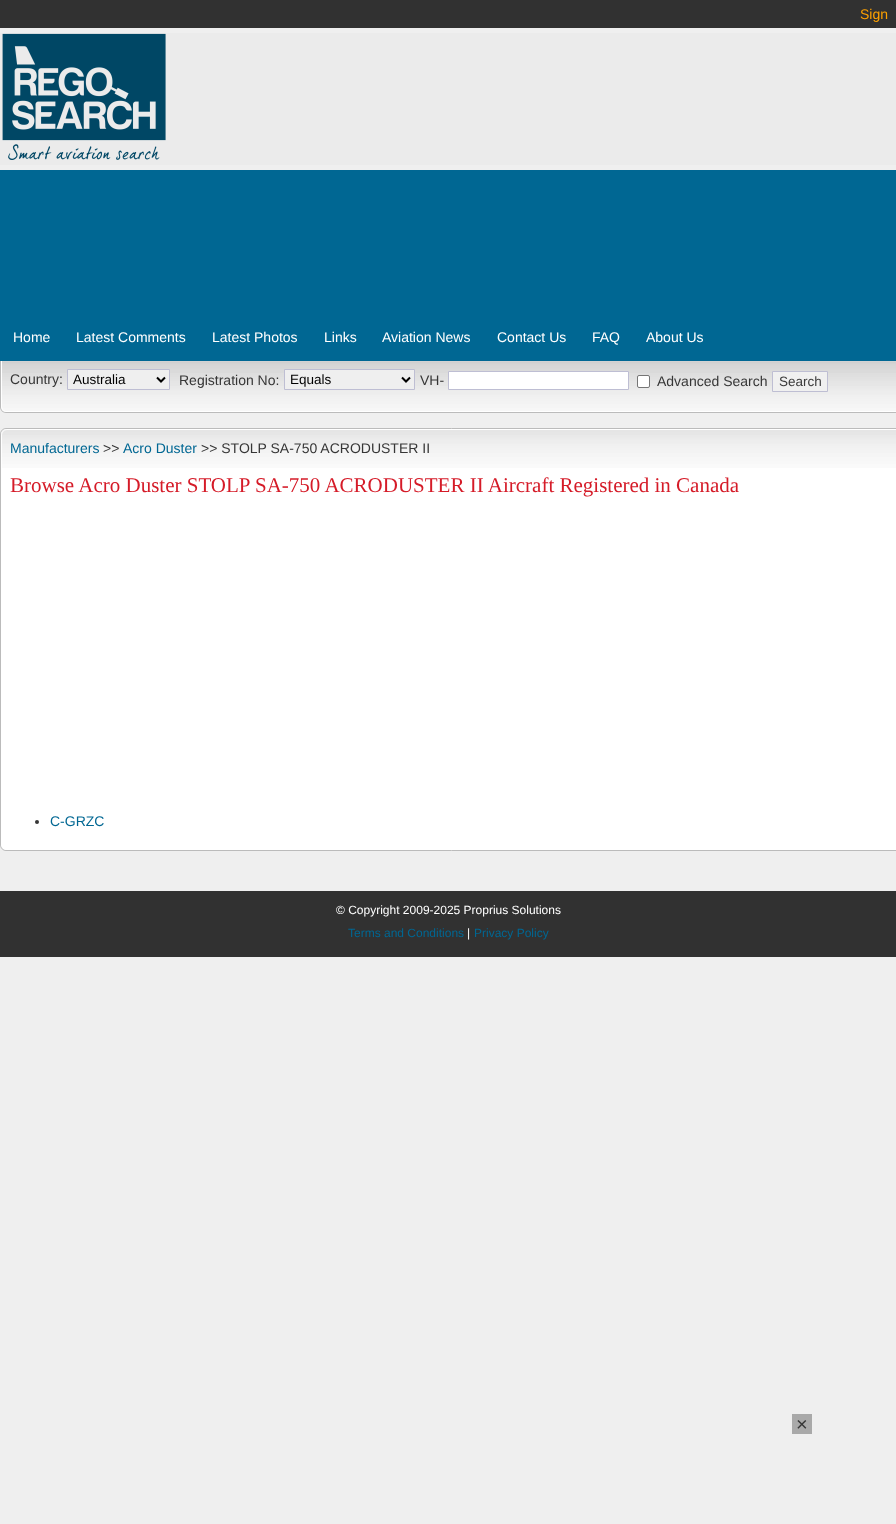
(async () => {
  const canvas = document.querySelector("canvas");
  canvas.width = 896;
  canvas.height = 1524;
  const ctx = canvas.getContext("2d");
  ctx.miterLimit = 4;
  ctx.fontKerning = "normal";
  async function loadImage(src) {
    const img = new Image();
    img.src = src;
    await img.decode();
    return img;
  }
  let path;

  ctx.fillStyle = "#efefef";
  ctx.fillRect(0, 0, 896, 1524);
  ctx.fillStyle = "#313131";
  ctx.fillRect(0, 0, 896, 28);
  ctx.fillStyle = "#ebebeb";
  ctx.fillRect(0, 33, 896, 132);
  ctx.drawImage(await loadImage("img/1.png"), 2, 33, 164, 127);
  ctx.fillStyle = "#006793";
  ctx.fillRect(0, 170, 896, 191);
  ctx.fillStyle = "#bbbbbb";
  path = new Path2D("M0 361H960V407C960 410 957 413 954 413H6C3 413 0 410 0 407ZM1 361H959V407C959 410 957 412 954 412H6C3 412 1 410 1 407Z");
  ctx.fill(path, "evenodd");
  ctx.drawImage(await loadImage("img/2.png"), 1, 361, 895, 51);
  ctx.fillStyle = "#ffffff";
  path = new Path2D("M1 361H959V406C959 409 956 412 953 412H7C4 412 1 409 1 406ZM2 361H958V406C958 409 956 411 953 411H7C4 411 2 409 2 406Z");
  ctx.fill(path, "evenodd");
  ctx.fillStyle = "#efefef";
  ctx.beginPath();
  ctx.rect(67.5, 369.5, 102, 20);
  ctx.fill();
  ctx.strokeStyle = "#bebed3";
  ctx.stroke();
  path = new Path2D("M157 377.5L161 381.5L165 377.5");
  ctx.strokeStyle = "#000000";
  ctx.lineWidth = 2;
  ctx.stroke(path);
  ctx.beginPath();
  ctx.rect(284.5, 369.5, 130, 20);
  ctx.fill();
  ctx.strokeStyle = "#bebed3";
  ctx.lineWidth = 1;
  ctx.stroke();
  path = new Path2D("M402 377.5L406 381.5L410 377.5");
  ctx.strokeStyle = "#000000";
  ctx.lineWidth = 2;
  ctx.stroke(path);
  ctx.fillStyle = "#ffffff";
  ctx.beginPath();
  ctx.rect(448.5, 371.5, 180, 18);
  ctx.fill();
  ctx.strokeStyle = "#bebed3";
  ctx.lineWidth = 1;
  ctx.stroke();
  ctx.beginPath();
  ctx.roundRect(637.5, 375.5, 12, 12, 1.5);
  ctx.fill();
  ctx.strokeStyle = "#767676";
  ctx.stroke();
  ctx.fillStyle = "#f0f0f0";
  ctx.beginPath();
  ctx.rect(772.5, 371.5, 55, 20);
  ctx.fill();
  ctx.strokeStyle = "#bebed3";
  ctx.stroke();
  ctx.beginPath();
  ctx.roundRect(0.5, 428.5, 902, 422, 5.5);
  ctx.strokeStyle = "#bbbbbb";
  ctx.stroke();
  ctx.fillStyle = "#ffffff";
  ctx.beginPath();
  ctx.roundRect(1, 429, 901, 421, 6);
  ctx.fill();
  ctx.drawImage(await loadImage("img/3.png"), 1, 429, 895, 39);
  ctx.beginPath();
  ctx.roundRect(1.5, 429.5, 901, 420, 5.5);
  ctx.strokeStyle = "#ffffff";
  ctx.stroke();
  ctx.fillStyle = "#363636";
  ctx.beginPath();
  ctx.arc(37, 822, 2, 0, Math.PI * 2);
  ctx.fill();
  ctx.fillStyle = "#313131";
  ctx.fillRect(0, 891, 896, 66);
  ctx.fillStyle = "#a9a9a9";
  ctx.fillRect(792, 1414, 20, 20);
  ctx.font = "14px Liberation Sans";
  ctx.fillStyle = "#ffa200";
  ctx.fillText("Sign", 860, 19);
  ctx.fillStyle = "#ffffff";
  for (const [text, x, y] of [
    ["Home", 13, 342],
    ["Latest Comments", 76, 342],
    ["Latest Photos", 212, 342],
    ["Links", 324, 342],
    ["Aviation News", 382, 342],
    ["Contact Us", 497, 342],
    ["FAQ", 592, 342],
    ["About Us", 646, 342],
  ]) {
    ctx.fillText(text, x, y);
  }
  ctx.fillStyle = "#363636";
  ctx.fillText("Country:", 10, 384);
  ctx.font = "13.5px Liberation Sans";
  ctx.fillStyle = "#000000";
  ctx.fillText("Australia", 73, 384);
  ctx.font = "14px Liberation Sans";
  ctx.fillStyle = "#363636";
  ctx.fillText("Registration No:", 179, 385);
  ctx.font = "13.5px Liberation Sans";
  ctx.fillStyle = "#000000";
  ctx.fillText("Equals", 290, 384);
  ctx.font = "14px Liberation Sans";
  ctx.fillStyle = "#363636";
  ctx.fillText("VH-", 420, 385);
  ctx.fillText("Advanced Search", 657, 386);
  ctx.font = "13.5px Liberation Sans";
  ctx.fillStyle = "#3c3c3c";
  ctx.fillText("Search", 779, 386);
  ctx.font = "14px Liberation Sans";
  ctx.fillStyle = "#006793";
  ctx.fillText("Manufacturers", 10, 453);
  ctx.fillStyle = "#363636";
  ctx.fillText(">>", 103, 453);
  ctx.fillStyle = "#006793";
  ctx.fillText("Acro Duster", 123, 453);
  ctx.fillStyle = "#363636";
  ctx.fillText(">> STOLP SA-750 ACRODUSTER II", 201, 453);
  ctx.font = "21px Liberation Serif";
  ctx.fillStyle = "#d51b28";
  ctx.fillText("Browse Acro Duster STOLP SA-750 ACRODUSTER II Aircraft Registered in Canada", 10, 492);
  ctx.font = "14px Liberation Sans";
  ctx.fillStyle = "#006793";
  ctx.fillText("C-GRZC", 50, 826);
  ctx.font = "12px Liberation Sans";
  ctx.fillStyle = "#ffffff";
  ctx.fillText("© Copyright 2009-2025 Proprius Solutions", 336, 914);
  ctx.fillStyle = "#006793";
  ctx.fillText("Terms and Conditions", 348, 937);
  ctx.fillStyle = "#ffffff";
  ctx.fillText("|", 467, 937);
  ctx.fillStyle = "#006793";
  ctx.fillText("Privacy Policy", 474, 937);
  ctx.font = "20px Liberation Sans";
  ctx.fillStyle = "#363636";
  ctx.fillText("×", 796, 1431);
})();
